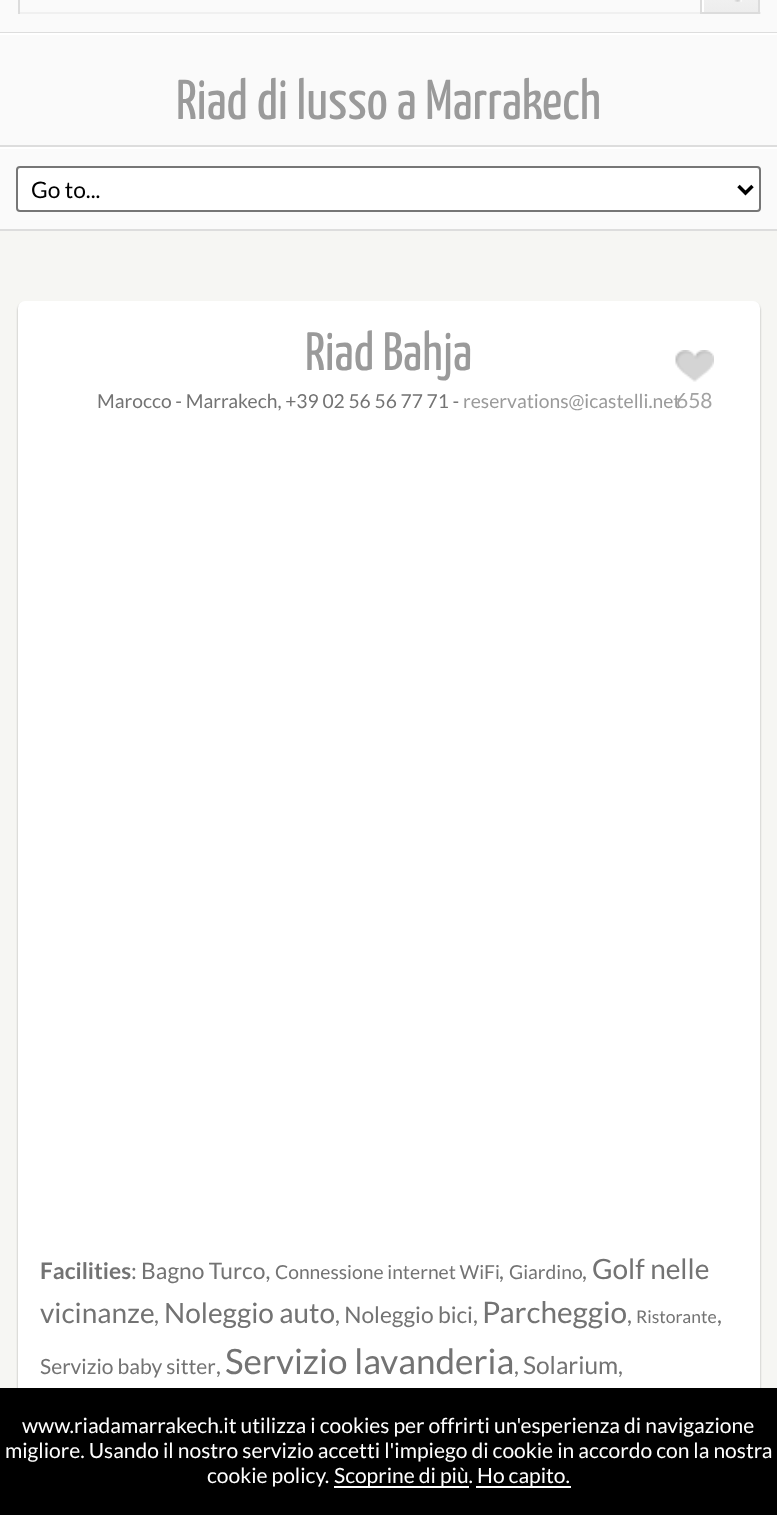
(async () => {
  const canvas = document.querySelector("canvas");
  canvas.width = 777;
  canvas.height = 1515;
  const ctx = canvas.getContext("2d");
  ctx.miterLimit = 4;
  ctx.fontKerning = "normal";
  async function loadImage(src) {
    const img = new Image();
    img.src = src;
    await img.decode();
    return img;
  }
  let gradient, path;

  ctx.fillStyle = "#f6f6f3";
  ctx.fillRect(0, 0, 777, 1515);
  ctx.fillStyle = "#fafafa";
  ctx.fillRect(0, 0, 777, 229);
  ctx.fillStyle = "#dddddd";
  ctx.fillRect(0, 32, 777, 1);
  gradient = ctx.createLinearGradient(702, 12, 702, -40);
  gradient.addColorStop(0, "#ededed");
  gradient.addColorStop(1, "#fafafa");
  ctx.fillStyle = gradient;
  ctx.fillRect(704, 0, 54, 12);
  ctx.save();
  ctx.beginPath();
  ctx.rect(702, 0, 56, 12);
  ctx.clip();
  ctx.fillStyle = "#ffffff";
  path = new Path2D("M528-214H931V186H528ZM704-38H760V14H704Z");
  ctx.fill(path, "evenodd");
  ctx.restore();
  ctx.fillStyle = "#f0f0f0";
  ctx.fillRect(18, 12, 743, 2);
  ctx.strokeStyle = "#dcdcdc";
  ctx.lineWidth = 2;
  ctx.strokeRect(701, -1, 58, 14);
  ctx.drawImage(await loadImage("img/1.png"), 734, 0, 8, 2);
  for (const [x, y, w, h, color] of [
    [18, 0, 2, 14, "#dcdcdc"],
    [0, 33, 777, 2, "#ffffff"],
    [0, 145, 777, 2, "#dddddd"],
    [0, 147, 777, 2, "#ffffff"],
    [0, 229, 777, 2, "#dddddd"],
  ]) {
    ctx.fillStyle = color;
    ctx.fillRect(x, y, w, h);
  }
  ctx.fillStyle = "#ffffff";
  ctx.beginPath();
  ctx.roundRect(17, 167, 743, 44, 3);
  ctx.fill();
  ctx.strokeStyle = "#767676";
  ctx.stroke();
  path = new Path2D("M738.5 186L745.5 193L752.5 186");
  ctx.strokeStyle = "#000000";
  ctx.lineWidth = 3.5;
  ctx.stroke(path);
  ctx.fillStyle = "rgba(0, 0, 0, 0.31)";
  ctx.filter = "blur(1px)";
  ctx.beginPath();
  ctx.roundRect(18, 303, 742, 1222, 7);
  ctx.fill();
  ctx.filter = "none";
  ctx.fillStyle = "#ffffff";
  ctx.beginPath();
  ctx.roundRect(18, 301, 742, 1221, 7);
  ctx.fill();
  ctx.drawImage(await loadImage("img/2.png"), 675, 350, 39, 32);
  for (const [x, y, w, h, color] of [
    [0, 1388, 777, 127, "#000000"],
    [334, 1486, 135, 2, "#ffffff"],
    [476, 1486, 95, 2, "#ffffff"],
  ]) {
    ctx.fillStyle = color;
    ctx.fillRect(x, y, w, h);
  }
  ctx.font = "200 56px Yanone Kaffeesatz";
  ctx.fillStyle = "#9a9a9a";
  ctx.fillText("Riad di lusso a Marrakech", 176, 119);
  ctx.font = "22.75px Lato";
  ctx.fillStyle = "#000000";
  ctx.fillText("Go to...", 31, 198);
  ctx.font = "200 54px Yanone Kaffeesatz";
  ctx.fillStyle = "#9a9a9a";
  ctx.fillText("Riad Bahja", 305, 370);
  ctx.font = "19.25px Lato";
  ctx.fillStyle = "#737373";
  ctx.fillText("Marocco - Marrakech, +39 02 56 56 77 71 -", 97, 408);
  ctx.fillStyle = "#9a9a9a";
  ctx.fillText("reservations@icastelli.net", 463, 408);
  ctx.font = "21px Lato";
  ctx.fillStyle = "#a3a3a3";
  ctx.fillText("658", 676, 408);
  ctx.font = "bold 22.75px Lato";
  ctx.fillStyle = "#737373";
  ctx.fillText("Facilities", 40, 1279);
  ctx.font = "22.75px Lato";
  ctx.fillText(": Bagno Turco,", 131, 1279);
  ctx.font = "19.25px Lato";
  ctx.fillText("Connessione internet WiFi", 275, 1279);
  ctx.font = "22.75px Lato";
  ctx.fillText(",", 499, 1279);
  ctx.font = "19.25px Lato";
  ctx.fillText("Giardino", 509, 1279);
  ctx.font = "22.75px Lato";
  ctx.fillText(",", 582, 1279);
  ctx.font = "28px Lato";
  ctx.fillText("Golf nelle", 592, 1279);
  ctx.fillText("vicinanze", 40, 1323);
  ctx.font = "22.75px Lato";
  ctx.fillText(",", 154, 1323);
  ctx.font = "28px Lato";
  ctx.fillText("Noleggio auto", 164, 1323);
  ctx.font = "22.75px Lato";
  ctx.fillText(", Noleggio bici,", 335, 1323);
  ctx.font = "29.75px Lato";
  ctx.fillText("Parcheggio", 482, 1323);
  ctx.font = "22.75px Lato";
  ctx.fillText(",", 627, 1323);
  ctx.font = "17.5px Lato";
  ctx.fillText("Ristorante", 636, 1323);
  ctx.font = "22.75px Lato";
  ctx.fillText(",", 717, 1323);
  ctx.font = "21px Lato";
  ctx.fillText("Servizio baby sitter", 40, 1374);
  ctx.font = "22.75px Lato";
  ctx.fillText(",", 216, 1374);
  ctx.font = "35px Lato";
  ctx.fillText("Servizio lavanderia", 225, 1374);
  ctx.font = "22.75px Lato";
  ctx.fillText(",", 514, 1374);
  ctx.font = "24.5px Lato";
  ctx.fillText("Solarium", 523, 1374);
  ctx.font = "22.75px Lato";
  ctx.fillText(",", 618, 1374);
  ctx.font = "21px Lato";
  ctx.fillStyle = "#ffffff";
  for (const [text, x, y] of [
    ["www.riadamarrakech.it utilizza i cookies per offrirti un'esperienza di navigazione", 22, 1433],
    ["migliore. Usando il nostro servizio accetti l'impiego di cookie in accordo con la nostra", 5, 1458],
    ["cookie policy.", 207, 1483],
    ["Scoprine di più.", 334, 1483],
    ["Ho capito.", 477, 1483],
  ]) {
    ctx.fillText(text, x, y);
  }
})();
